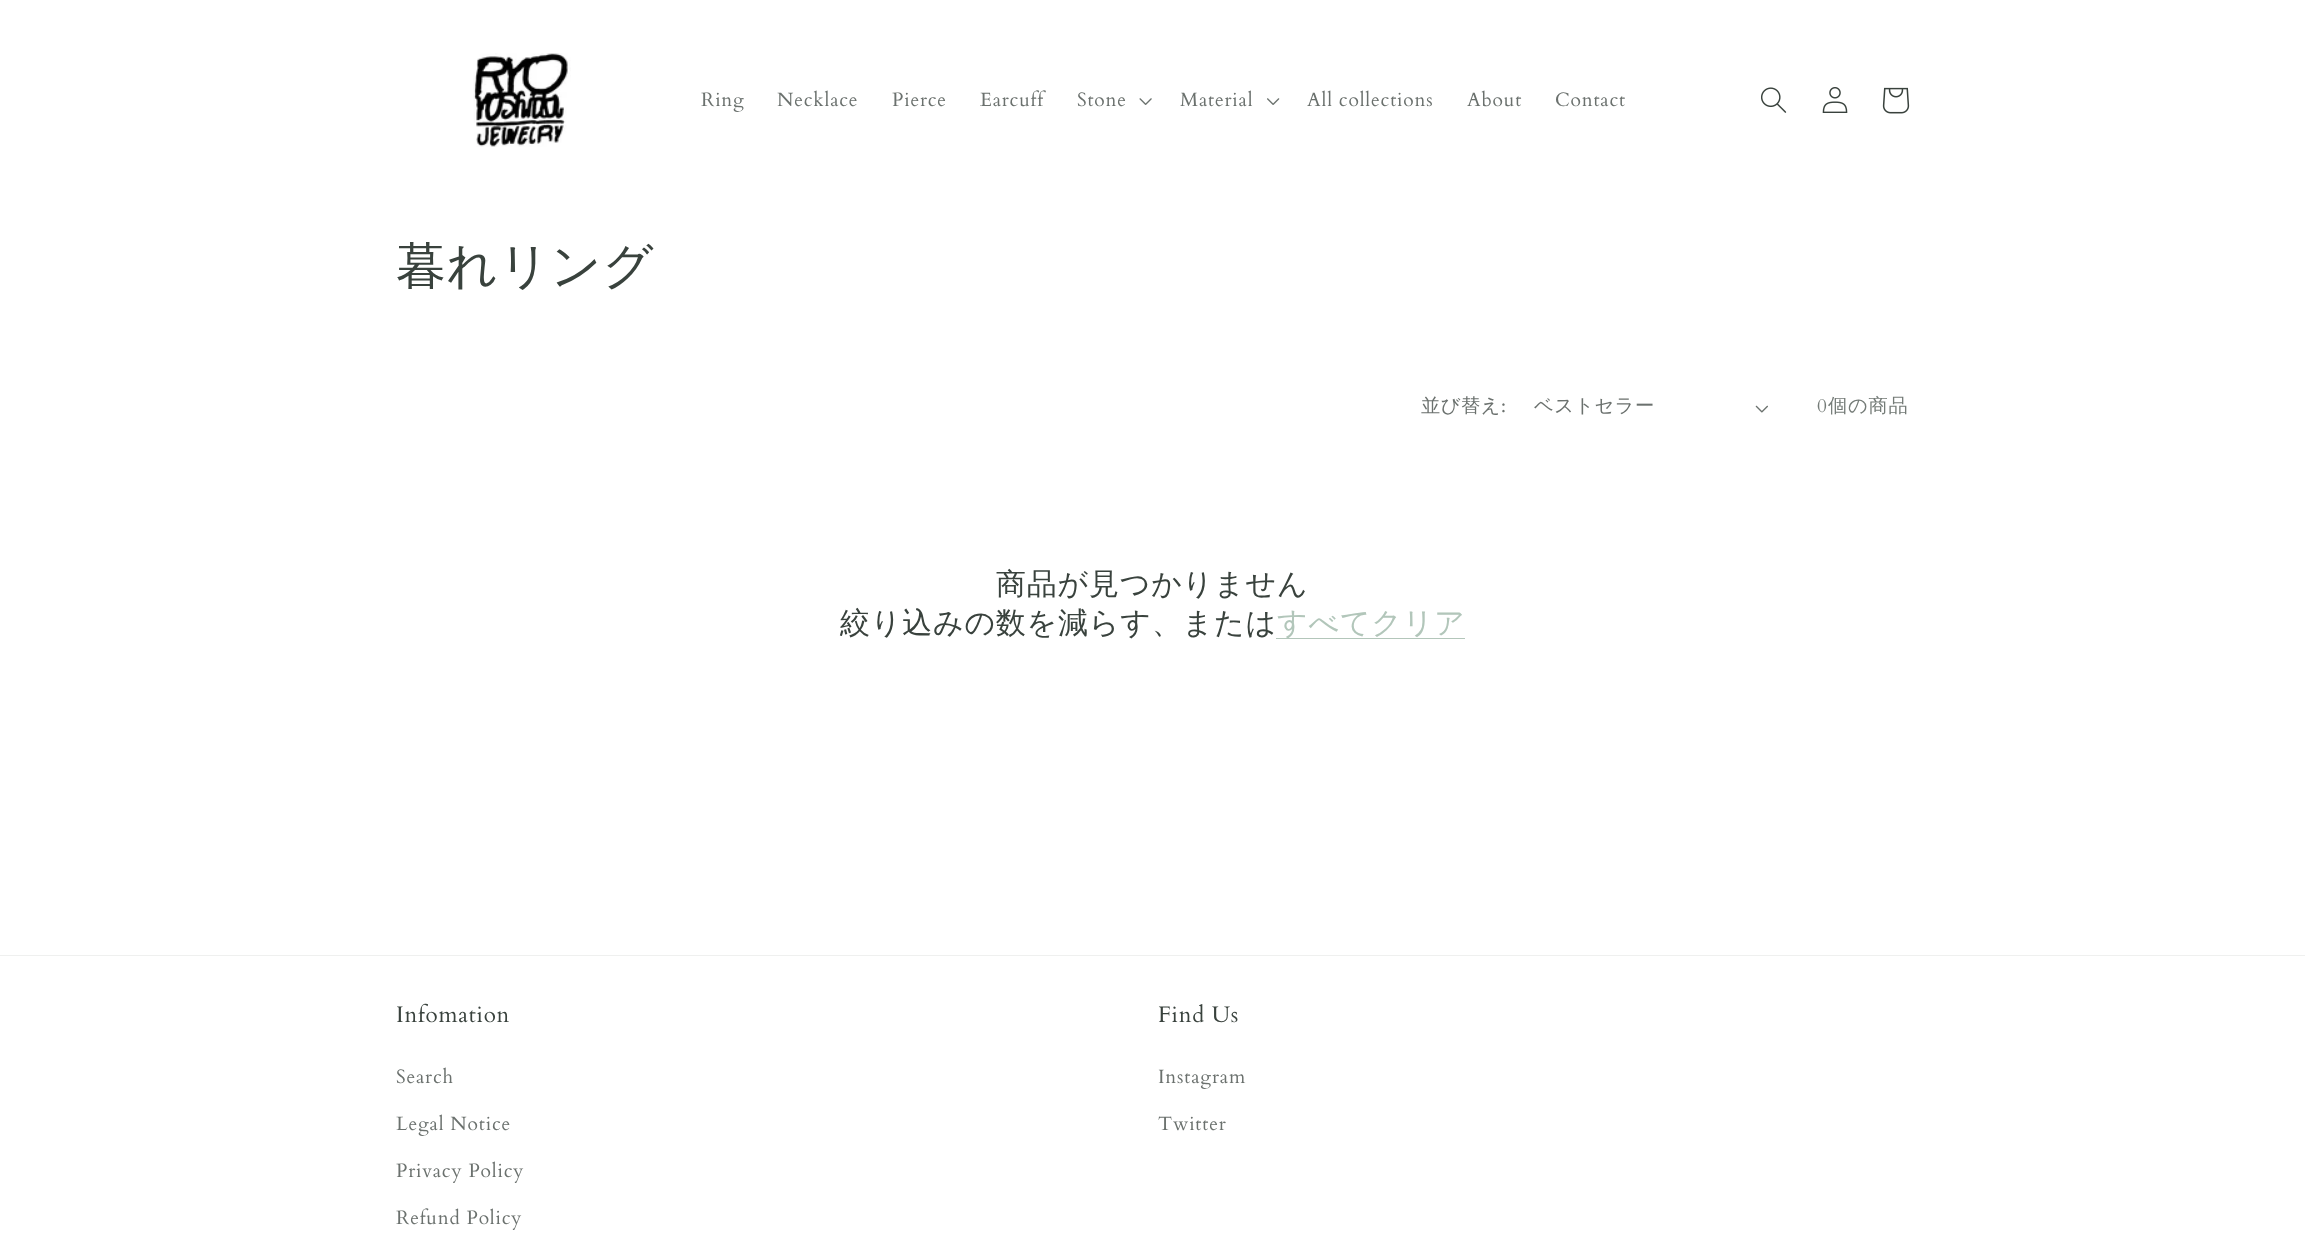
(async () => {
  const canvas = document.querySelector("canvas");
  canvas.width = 2305;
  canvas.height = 1235;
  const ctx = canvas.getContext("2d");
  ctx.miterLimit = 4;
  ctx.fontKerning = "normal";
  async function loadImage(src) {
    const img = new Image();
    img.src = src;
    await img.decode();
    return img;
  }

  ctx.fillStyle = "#ffffff";
  ctx.fillRect(0, 0, 2305, 1235);
  ctx.drawImage(await loadImage("img/1.png"), 473, 53, 98, 94);
  ctx.drawImage(await loadImage("img/2.png"), 1139, 98, 13, 7);
  ctx.drawImage(await loadImage("img/3.png"), 1267, 98, 13, 7);
  ctx.drawImage(await loadImage("img/4.png"), 1761, 87, 26, 26);
  ctx.drawImage(await loadImage("img/5.png"), 1822, 87, 26, 26);
  ctx.drawImage(await loadImage("img/6.png"), 1882, 87, 28, 27);
  ctx.drawImage(await loadImage("img/7.png"), 1755, 405, 13, 8);
  ctx.fillStyle = "#b3c6ba";
  ctx.fillRect(1276, 638, 189, 1);
  ctx.fillStyle = "#eff0ef";
  ctx.fillRect(0, 955, 2305, 1);
  ctx.letterSpacing = "0.8px";
  ctx.font = "19.25px Cardo";
  ctx.fillStyle = "#6b716e";
  for (const [text, x, y] of [
    ["Ring", 701, 106],
    ["Necklace", 777, 106],
    ["Pierce", 892, 106],
    ["Earcuff", 980, 106],
    ["Stone", 1077, 106],
    ["Material", 1180, 106],
    ["All collections", 1307, 106],
    ["About", 1467, 106],
    ["Contact", 1555, 106],
  ]) {
    ctx.fillText(text, x, y);
  }
  ctx.letterSpacing = "0.75px";
  ctx.font = "500 50px WenQuanYi Zen Hei";
  ctx.fillStyle = "#39423d";
  ctx.fillText("暮れリング", 396, 283);
  ctx.letterSpacing = "0.5px";
  ctx.font = "500 19.25px WenQuanYi Zen Hei";
  ctx.fillStyle = "#6b716e";
  ctx.fillText("並び替え", 1421, 412);
  ctx.font = "19.25px Cardo";
  ctx.fillText(":", 1501, 412);
  ctx.font = "500 19.25px WenQuanYi Zen Hei";
  ctx.fillText("ベストセラー", 1534, 412);
  ctx.letterSpacing = "0.8px";
  ctx.font = "19.25px Cardo";
  ctx.fillStyle = "#747b77";
  ctx.fillText("0", 1817, 412);
  ctx.font = "500 19.25px WenQuanYi Zen Hei";
  ctx.fillText("個の商品", 1828, 412);
  ctx.letterSpacing = "0.75px";
  ctx.font = "500 30px WenQuanYi Zen Hei";
  ctx.fillStyle = "#39423d";
  ctx.fillText("商品が見つかりません", 996, 594);
  ctx.fillText("絞り込みの数を減らす、または", 840, 633);
  ctx.fillStyle = "#b2c6ba";
  ctx.fillText("すべてクリア", 1277, 633);
  ctx.font = "22.5px Cardo";
  ctx.fillStyle = "#39423d";
  ctx.fillText("Infomation", 396, 1022);
  ctx.letterSpacing = "0.8px";
  ctx.font = "19.25px Cardo";
  ctx.fillStyle = "#6b716e";
  for (const [text, x, y] of [
    ["Search", 396, 1083],
    ["Legal Notice", 396, 1130],
    ["Privacy Policy", 396, 1177],
    ["Refund Policy", 396, 1224],
  ]) {
    ctx.fillText(text, x, y);
  }
  ctx.letterSpacing = "0.75px";
  ctx.font = "22.5px Cardo";
  ctx.fillStyle = "#39423d";
  ctx.fillText("Find Us", 1158, 1022);
  ctx.letterSpacing = "0.8px";
  ctx.font = "19.25px Cardo";
  ctx.fillStyle = "#6b716e";
  ctx.fillText("Instagram", 1158, 1083);
  ctx.fillText("Twitter", 1158, 1130);
})();
